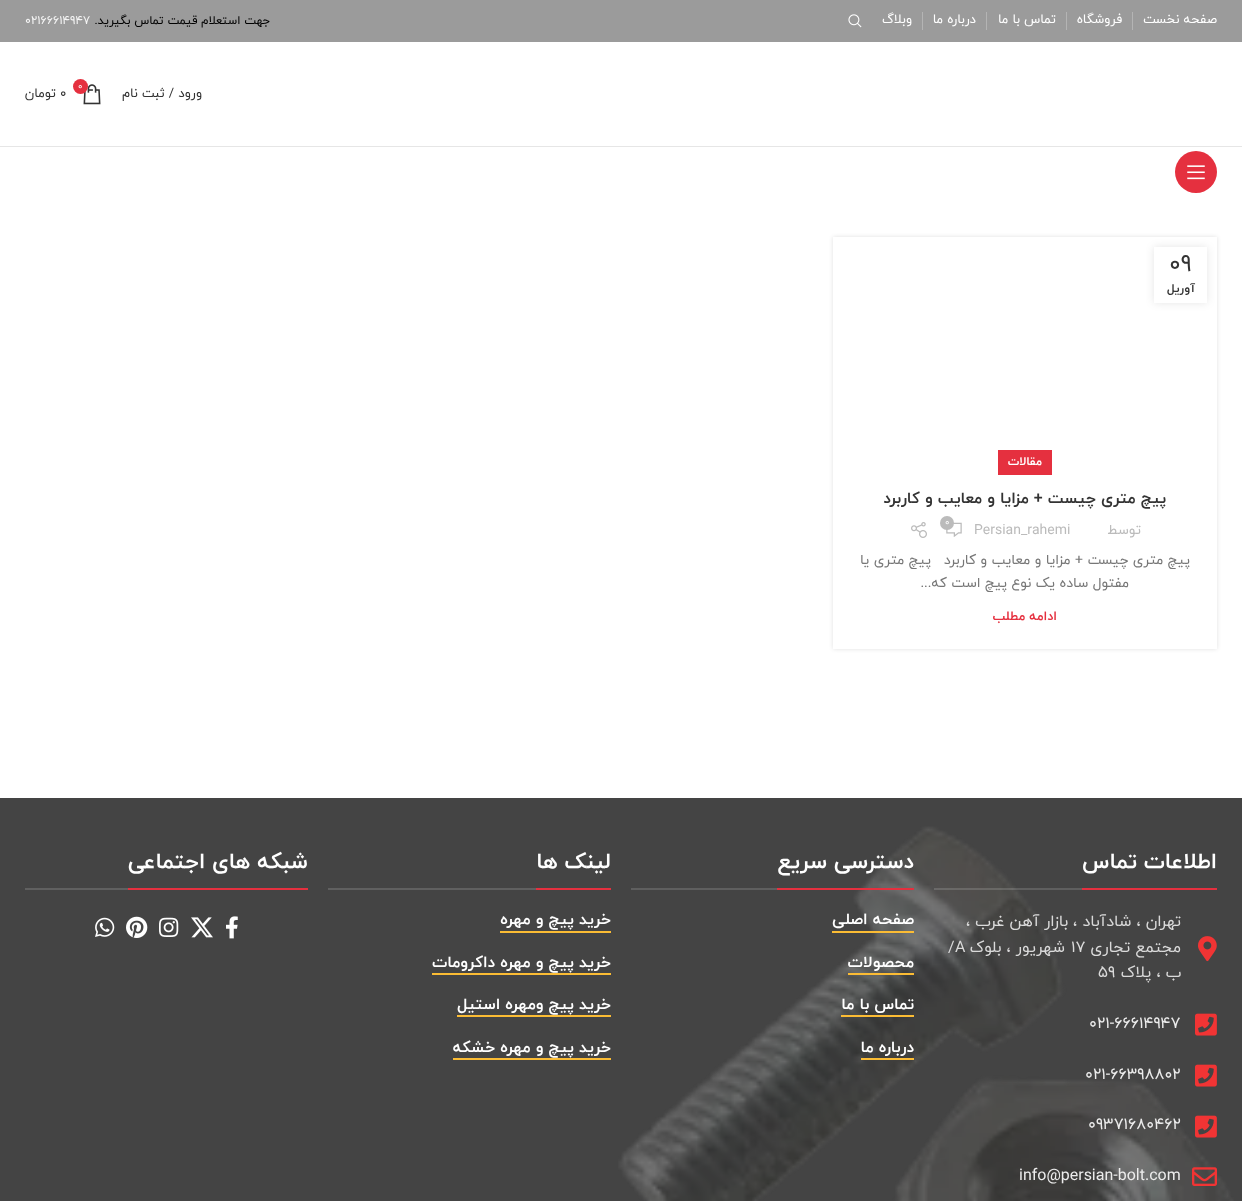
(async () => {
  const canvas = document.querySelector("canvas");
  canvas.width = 1242;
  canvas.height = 1201;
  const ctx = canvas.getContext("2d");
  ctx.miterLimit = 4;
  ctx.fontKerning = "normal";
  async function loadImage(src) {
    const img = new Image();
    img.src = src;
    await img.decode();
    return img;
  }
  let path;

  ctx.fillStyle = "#ffffff";
  ctx.fillRect(0, 0, 1242, 1201);
  for (const [x, y, w, h, color] of [
    [0, 0, 1242, 42, "#9b9b9b"],
    [1132, 12, 1, 18, "#b4b4b4"],
    [1066, 12, 1, 18, "#b4b4b4"],
    [986, 12, 1, 18, "#b4b4b4"],
    [922, 12, 1, 18, "#b4b4b4"],
  ]) {
    ctx.fillStyle = color;
    ctx.fillRect(x, y, w, h);
  }
  ctx.drawImage(await loadImage("img/1.png"), 848, 14, 14, 14);
  ctx.fillStyle = "#e6e6e6";
  ctx.fillRect(0, 146, 1242, 1);
  ctx.drawImage(await loadImage("img/2.png"), 83, 84, 18, 21);
  ctx.fillStyle = "#e5303f";
  ctx.beginPath();
  ctx.arc(80.5, 86.5, 7.5, 0, Math.PI * 2);
  ctx.fill();
  ctx.beginPath();
  ctx.arc(1196, 172, 21, 0, Math.PI * 2);
  ctx.fill();
  ctx.drawImage(await loadImage("img/3.png"), 1187, 165, 18, 15);
  ctx.save();
  path = new Path2D("M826 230H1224V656H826ZM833 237H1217V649H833Z");
  ctx.clip(path, "evenodd");
  ctx.fillStyle = "rgba(0, 0, 0, 0.12)";
  ctx.filter = "blur(2px)";
  ctx.beginPath();
  ctx.rect(833, 237, 384, 412);
  ctx.fill();
  ctx.filter = "none";
  ctx.restore();
  ctx.save();
  path = new Path2D("M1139 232H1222V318H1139ZM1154 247H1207V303H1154Z");
  ctx.clip(path, "evenodd");
  ctx.fillStyle = "rgba(0, 0, 0, 0.1)";
  ctx.filter = "blur(4.5px)";
  ctx.beginPath();
  ctx.rect(1154, 247, 53, 56);
  ctx.fill();
  ctx.filter = "none";
  ctx.restore();
  ctx.fillRect(998, 450, 54, 25);
  ctx.drawImage(await loadImage("img/4.png"), 946, 522, 16, 15);
  ctx.fillStyle = "#bbbbbb";
  ctx.beginPath();
  ctx.arc(947, 523, 7, 0, Math.PI * 2);
  ctx.fill();
  ctx.drawImage(await loadImage("img/5.png"), 911, 522, 16, 16);
  ctx.fillStyle = "#444444";
  ctx.fillRect(0, 798, 1242, 403);
  ctx.drawImage(await loadImage("img/6.png"), 618, 826, 616, 375);
  ctx.fillStyle = "rgba(255, 255, 255, 0.15)";
  ctx.fillRect(934, 888, 148, 2);
  ctx.fillStyle = "#e5303f";
  ctx.fillRect(1082, 888, 135, 2);
  ctx.drawImage(await loadImage("img/7.png"), 1198, 936, 19, 26);
  ctx.drawImage(await loadImage("img/8.png"), 1195, 1013, 22, 23);
  ctx.drawImage(await loadImage("img/8.png"), 1195, 1064, 22, 23);
  ctx.drawImage(await loadImage("img/8.png"), 1195, 1115, 22, 23);
  ctx.drawImage(await loadImage("img/9.png"), 1192, 1167, 25, 19);
  for (const [x, y, w, h, color] of [
    [631, 888, 146, 2, "rgba(255, 255, 255, 0.15)"],
    [777, 888, 137, 2, "#e5303f"],
    [832, 931, 82, 2, "#fbbc34"],
    [848, 973, 66, 2, "#fbbc34"],
    [841, 1015, 73, 2, "#fbbc34"],
    [861, 1058, 53, 2, "#fbbc34"],
    [328, 888, 208, 2, "#606060"],
    [536, 888, 75, 2, "#e5303f"],
    [500, 931, 111, 2, "#fbbc34"],
    [432, 973, 179, 2, "#fbbc34"],
    [457, 1015, 154, 2, "#fbbc34"],
    [453, 1058, 158, 2, "#fbbc34"],
    [25, 888, 103, 2, "#606060"],
    [128, 888, 180, 2, "#e5303f"],
  ]) {
    ctx.fillStyle = color;
    ctx.fillRect(x, y, w, h);
  }
  ctx.drawImage(await loadImage("img/10.png"), 226, 916, 12, 23);
  ctx.drawImage(await loadImage("img/11.png"), 191, 917, 22, 21);
  ctx.drawImage(await loadImage("img/12.png"), 159, 917, 20, 20);
  ctx.drawImage(await loadImage("img/13.png"), 126, 916, 22, 22);
  ctx.drawImage(await loadImage("img/14.png"), 95, 917, 20, 20);
  ctx.direction = "rtl";
  ctx.font = "13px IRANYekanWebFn";
  ctx.fillStyle = "#ffffff";
  for (const [text, x, y] of [
    ["صفحه نخست", 1217, 23],
    ["فروشگاه", 1122, 23],
    ["تماس با ما", 1056, 23],
    ["درباره ما", 976, 23],
    ["وبلاگ", 912, 23],
  ]) {
    ctx.fillText(text, x, y);
  }
  ctx.font = "12px IRANYekanWebFn";
  ctx.fillStyle = "#000000";
  ctx.fillText("جهت استعلام قیمت تماس بگیرید.", 270, 24);
  ctx.direction = "ltr";
  ctx.fillStyle = "#f5f5f5";
  ctx.fillText("02166614947", 25, 24);
  ctx.direction = "rtl";
  ctx.font = "13px IRANYekanWebFn";
  ctx.fillStyle = "#333333";
  ctx.fillText("ورود / ثبت نام", 202, 97);
  ctx.direction = "ltr";
  ctx.font = "9px IRANYekanWebFn";
  ctx.fillStyle = "#ffffff";
  ctx.fillText("0", 78, 89);
  ctx.font = "13px IRANYekanWebFn";
  ctx.fillStyle = "#333333";
  ctx.fillText("0", 60, 97);
  ctx.direction = "rtl";
  ctx.fillText("تومان", 56, 97);
  ctx.direction = "ltr";
  ctx.font = "24px IRANYekanWebFn";
  ctx.fillText("09", 1169, 271);
  ctx.direction = "rtl";
  ctx.font = "bold 12px IRANYekanWebFn";
  ctx.fillText("آوریل", 1195, 292);
  ctx.fillStyle = "#ffffff";
  ctx.fillText("مقالات", 1042, 465);
  ctx.font = "bold 16px IRANYekanWebFn";
  ctx.fillStyle = "#333333";
  ctx.fillText("پیچ متری چیست + مزایا و معایب و کاربرد", 1166, 503);
  ctx.font = "14px IRANYekanWebFn";
  ctx.fillStyle = "#bbbbbb";
  ctx.fillText("توسط", 1141, 534);
  ctx.direction = "ltr";
  ctx.fillText("Persian_rahemi", 974, 534);
  ctx.font = "9px IRANYekanWebFn";
  ctx.fillStyle = "#ffffff";
  ctx.fillText("0", 945, 525);
  ctx.direction = "rtl";
  ctx.font = "14px IRANYekanWebFn";
  ctx.fillStyle = "#777777";
  for (const [text, x, y] of [
    ["پیچ متری چیست + مزایا و معایب و کاربرد", 1190, 564],
    ["پیچ متری یا", 931, 564],
    ["مفتول ساده یک نوع پیچ است که...", 1129, 587],
  ]) {
    ctx.fillText(text, x, y);
  }
  ctx.font = "bold 13px IRANYekanWebFn";
  ctx.fillStyle = "#e5303f";
  ctx.fillText("ادامه مطلب", 1057, 620);
  ctx.font = "bold 22px IRANYekanWebFn";
  ctx.fillStyle = "#ffffff";
  ctx.fillText("اطلاعات تماس", 1217, 868);
  ctx.font = "16px IRANYekanWebFn";
  ctx.fillStyle = "#dadada";
  ctx.fillText("تهران ، شادآباد ، بازار آهن غرب ،", 1181, 926);
  ctx.fillText("مجتمع تجاری", 1181, 952);
  ctx.direction = "ltr";
  ctx.fillText("17", 1071, 952);
  ctx.direction = "rtl";
  ctx.fillText("شهریور ، بلوک", 1065, 952);
  ctx.direction = "ltr";
  ctx.fillText("A", 955, 952);
  ctx.fillText("/", 948, 952);
  ctx.direction = "rtl";
  ctx.fillText("ب ، پلاک", 1181, 977);
  ctx.direction = "ltr";
  ctx.fillText("۵9", 1098, 977);
  ctx.fillStyle = "#ececec";
  for (const [text, x, y] of [
    ["021-66614947", 1089, 1028],
    ["021-66398802", 1085, 1079],
    ["09371680462", 1088, 1129],
    ["info@persian-bolt.com", 1019, 1180],
  ]) {
    ctx.fillText(text, x, y);
  }
  ctx.direction = "rtl";
  ctx.font = "bold 22px IRANYekanWebFn";
  ctx.fillStyle = "#ffffff";
  ctx.fillText("دسترسی سریع", 914, 868);
  ctx.font = "bold 16px IRANYekanWebFn";
  for (const [text, x, y] of [
    ["صفحه اصلی", 914, 924],
    ["محصولات", 914, 967],
    ["تماس با ما", 914, 1009],
    ["درباره ما", 914, 1052],
  ]) {
    ctx.fillText(text, x, y);
  }
  ctx.font = "bold 22px IRANYekanWebFn";
  ctx.fillText("لینک ها", 611, 868);
  ctx.font = "bold 16px IRANYekanWebFn";
  for (const [text, x, y] of [
    ["خرید پیچ و مهره", 611, 924],
    ["خرید پیچ و مهره داکرومات", 611, 967],
    ["خرید پیچ ومهره استیل", 611, 1009],
    ["خرید پیچ و مهره خشکه", 611, 1052],
  ]) {
    ctx.fillText(text, x, y);
  }
  ctx.font = "bold 22px IRANYekanWebFn";
  ctx.fillText("شبکه های اجتماعی", 308, 868);
})();
